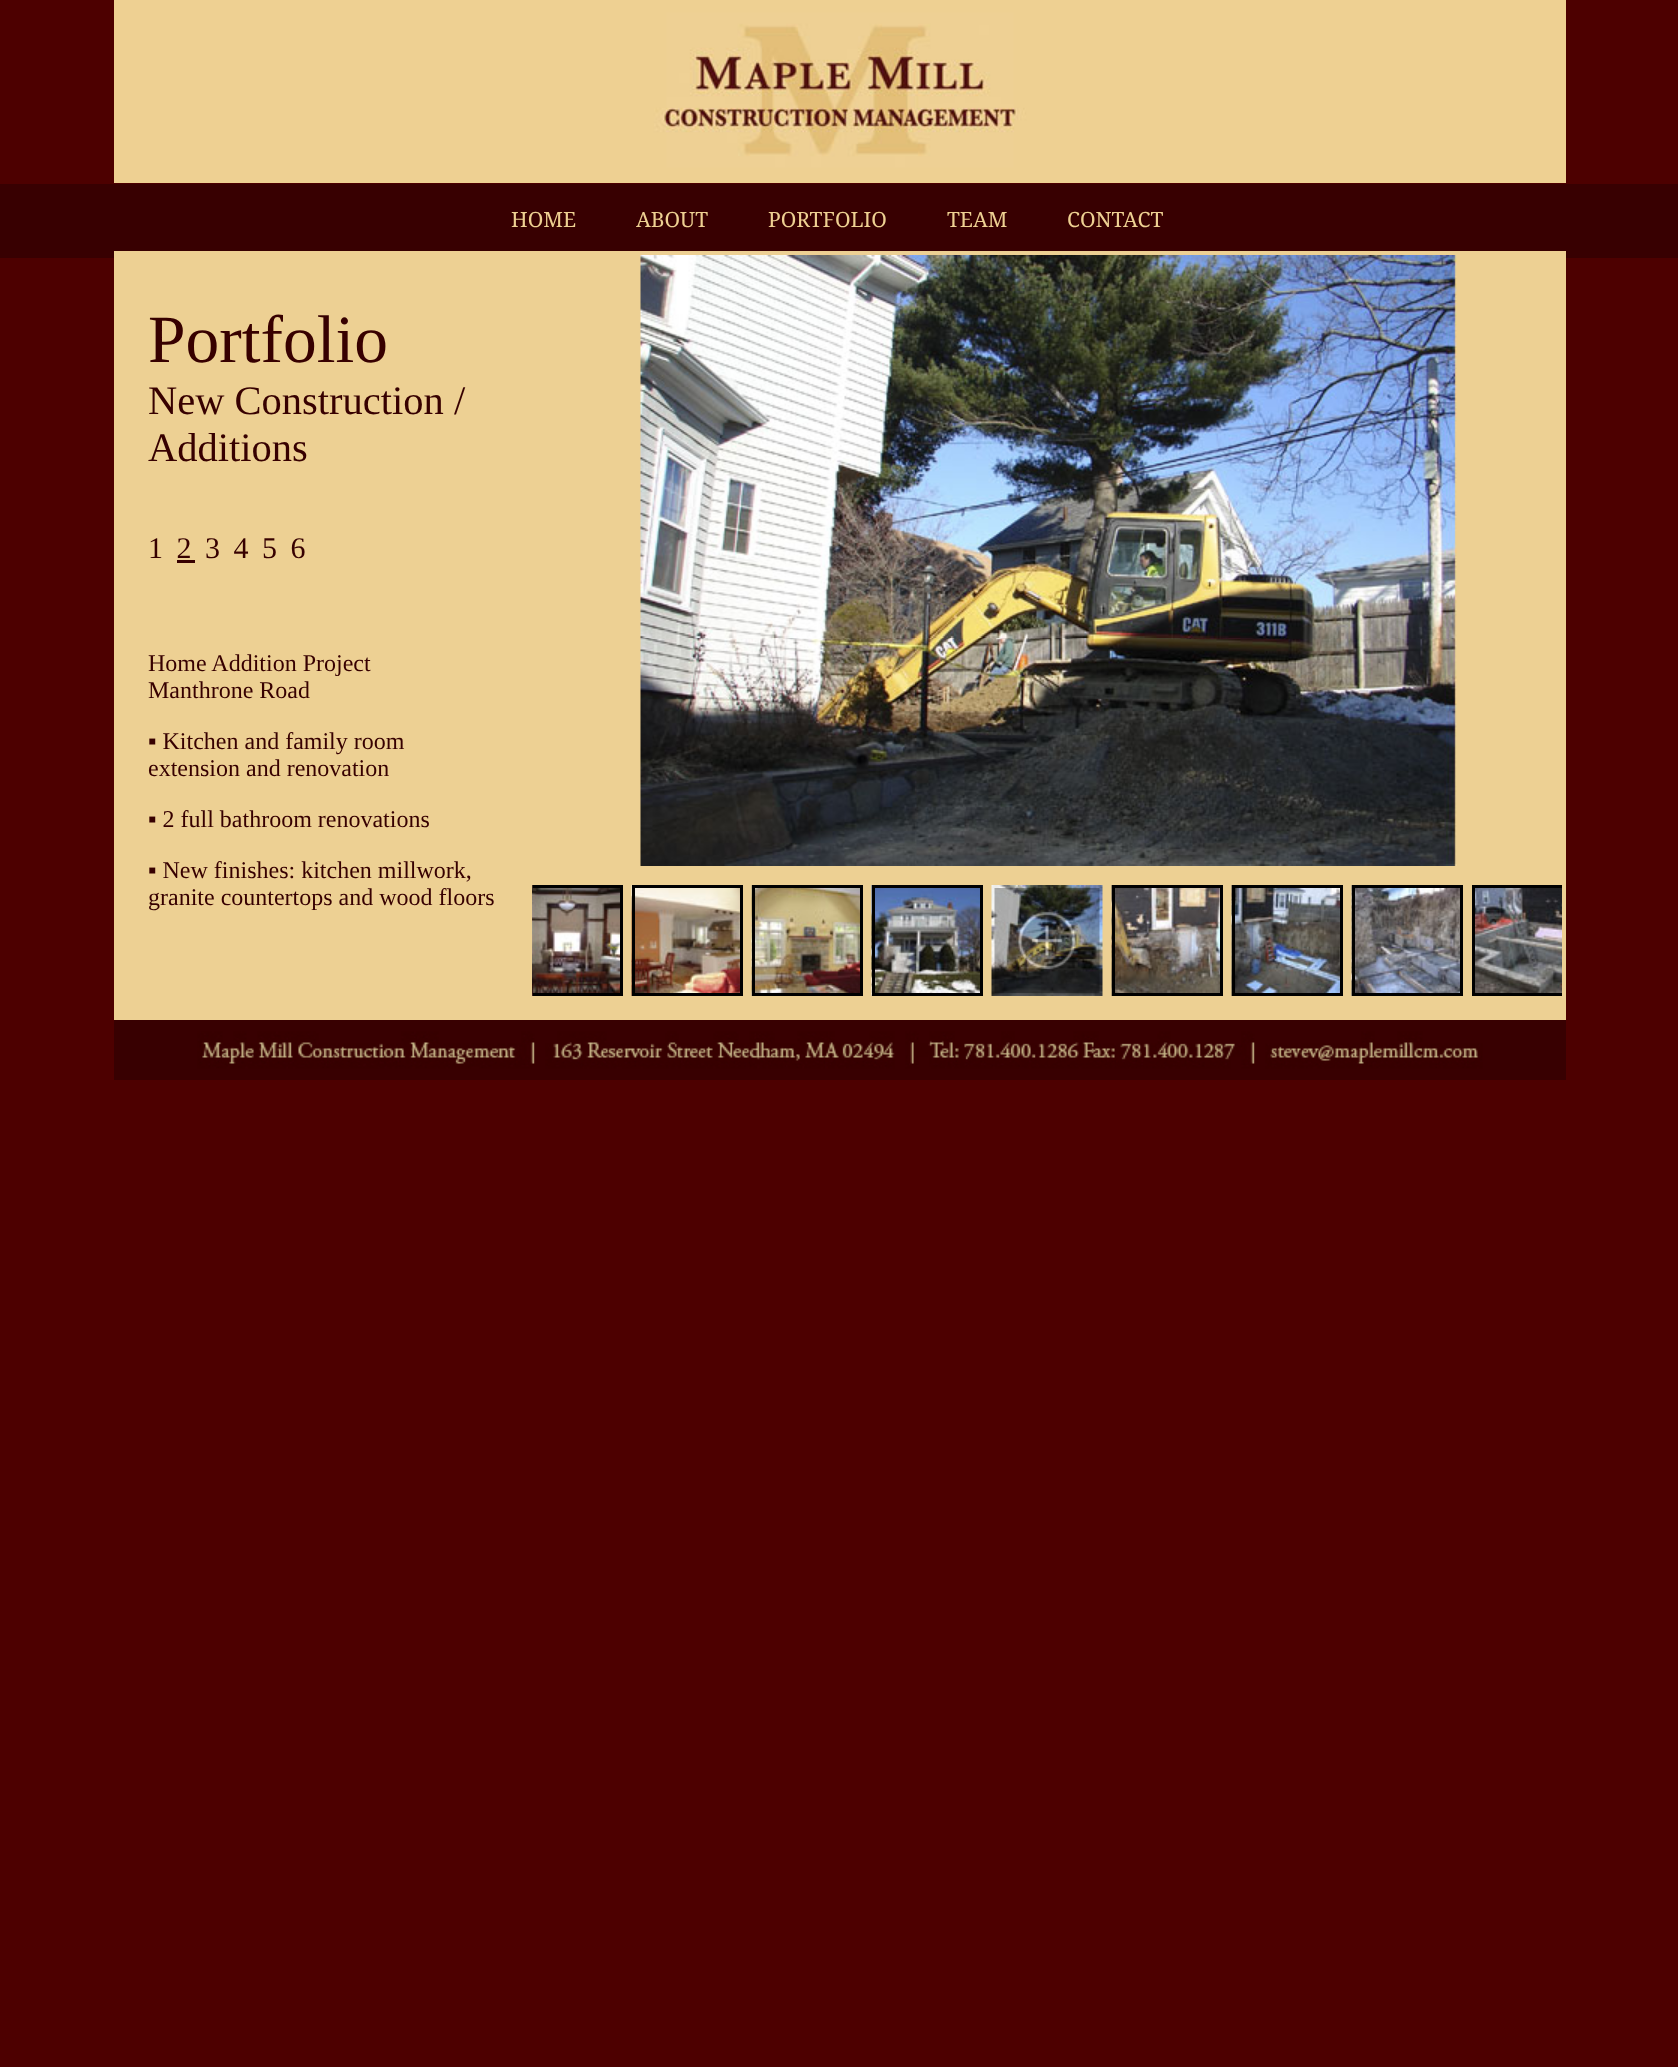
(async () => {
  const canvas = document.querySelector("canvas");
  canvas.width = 1678;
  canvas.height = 2067;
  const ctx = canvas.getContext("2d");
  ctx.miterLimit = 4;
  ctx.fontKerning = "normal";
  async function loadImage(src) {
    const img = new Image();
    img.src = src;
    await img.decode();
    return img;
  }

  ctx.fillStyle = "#4d0000";
  ctx.fillRect(0, 0, 1678, 2067);
  ctx.fillStyle = "#380001";
  ctx.fillRect(0, 184, 1678, 74);
  ctx.drawImage(await loadImage("img/1.png"), 114, 0, 1452, 183);
  ctx.fillStyle = "#edd093";
  ctx.fillRect(114, 251, 1452, 769);
  ctx.fillStyle = "#370000";
  ctx.fillRect(177, 560, 18, 3);
  ctx.drawImage(await loadImage("img/2.png"), 640, 255, 817, 611);
  ctx.drawImage(await loadImage("img/3.png"), 532, 885, 88, 111);
  ctx.save();
  ctx.beginPath();
  ctx.rect(533, 885, 90, 111);
  ctx.clip();
  ctx.strokeStyle = "#000000";
  ctx.lineWidth = 3;
  ctx.strokeRect(513.5, 886.5, 108, 108);
  ctx.restore();
  ctx.drawImage(await loadImage("img/4.png"), 631, 885, 109, 111);
  ctx.strokeStyle = "#000000";
  ctx.lineWidth = 3;
  ctx.strokeRect(633.5, 886.5, 108, 108);
  ctx.drawImage(await loadImage("img/5.png"), 751, 885, 109, 111);
  ctx.strokeRect(753.5, 886.5, 108, 108);
  ctx.drawImage(await loadImage("img/6.png"), 871, 885, 109, 111);
  ctx.strokeRect(873.5, 886.5, 108, 108);
  ctx.drawImage(await loadImage("img/7.png"), 991, 885, 112, 111);
  ctx.drawImage(await loadImage("img/8.png"), 994, 888, 106, 105);
  ctx.drawImage(await loadImage("img/9.png"), 1111, 885, 109, 111);
  ctx.strokeRect(1113.5, 886.5, 108, 108);
  ctx.drawImage(await loadImage("img/10.png"), 1231, 885, 109, 111);
  ctx.strokeRect(1233.5, 886.5, 108, 108);
  ctx.drawImage(await loadImage("img/11.png"), 1351, 885, 109, 111);
  ctx.strokeRect(1353.5, 886.5, 108, 108);
  ctx.drawImage(await loadImage("img/12.png"), 1475, 888, 87, 105);
  ctx.save();
  ctx.beginPath();
  ctx.rect(1472, 885, 90, 111);
  ctx.clip();
  ctx.strokeRect(1473.5, 886.5, 108, 108);
  ctx.restore();
  ctx.drawImage(await loadImage("img/13.png"), 114, 1020, 1452, 60);
  ctx.font = "21px Droid Serif";
  ctx.fillStyle = "#eed092";
  for (const [text, x, y] of [
    ["HOME", 511, 227],
    ["ABOUT", 636, 227],
    ["PORTFOLIO", 768, 227],
    ["TEAM", 947, 227],
    ["CONTACT", 1067, 227],
  ]) {
    ctx.fillText(text, x, y);
  }
  ctx.font = "67.5px Liberation Serif";
  ctx.fillStyle = "#370000";
  ctx.fillText("Portfolio", 148, 362);
  ctx.font = "40.5px Liberation Serif";
  ctx.fillText("New Construction /", 148, 414);
  ctx.fillText("Additions", 148, 461);
  ctx.letterSpacing = "3px";
  ctx.font = "30px Liberation Serif";
  ctx.fillText("1 2 3 4 5 6", 148, 558);
  ctx.letterSpacing = "0px";
  ctx.font = "24px Liberation Serif";
  for (const [text, x, y] of [
    ["Home Addition Project", 148, 671],
    ["Manthrone Road", 148, 698],
    ["▪ Kitchen and family room", 148, 749],
    ["extension and renovation", 148, 776],
    ["▪ 2 full bathroom renovations", 148, 827],
    ["▪ New finishes: kitchen millwork,", 148, 878],
    ["granite countertops and wood floors", 148, 905],
  ]) {
    ctx.fillText(text, x, y);
  }
})();
